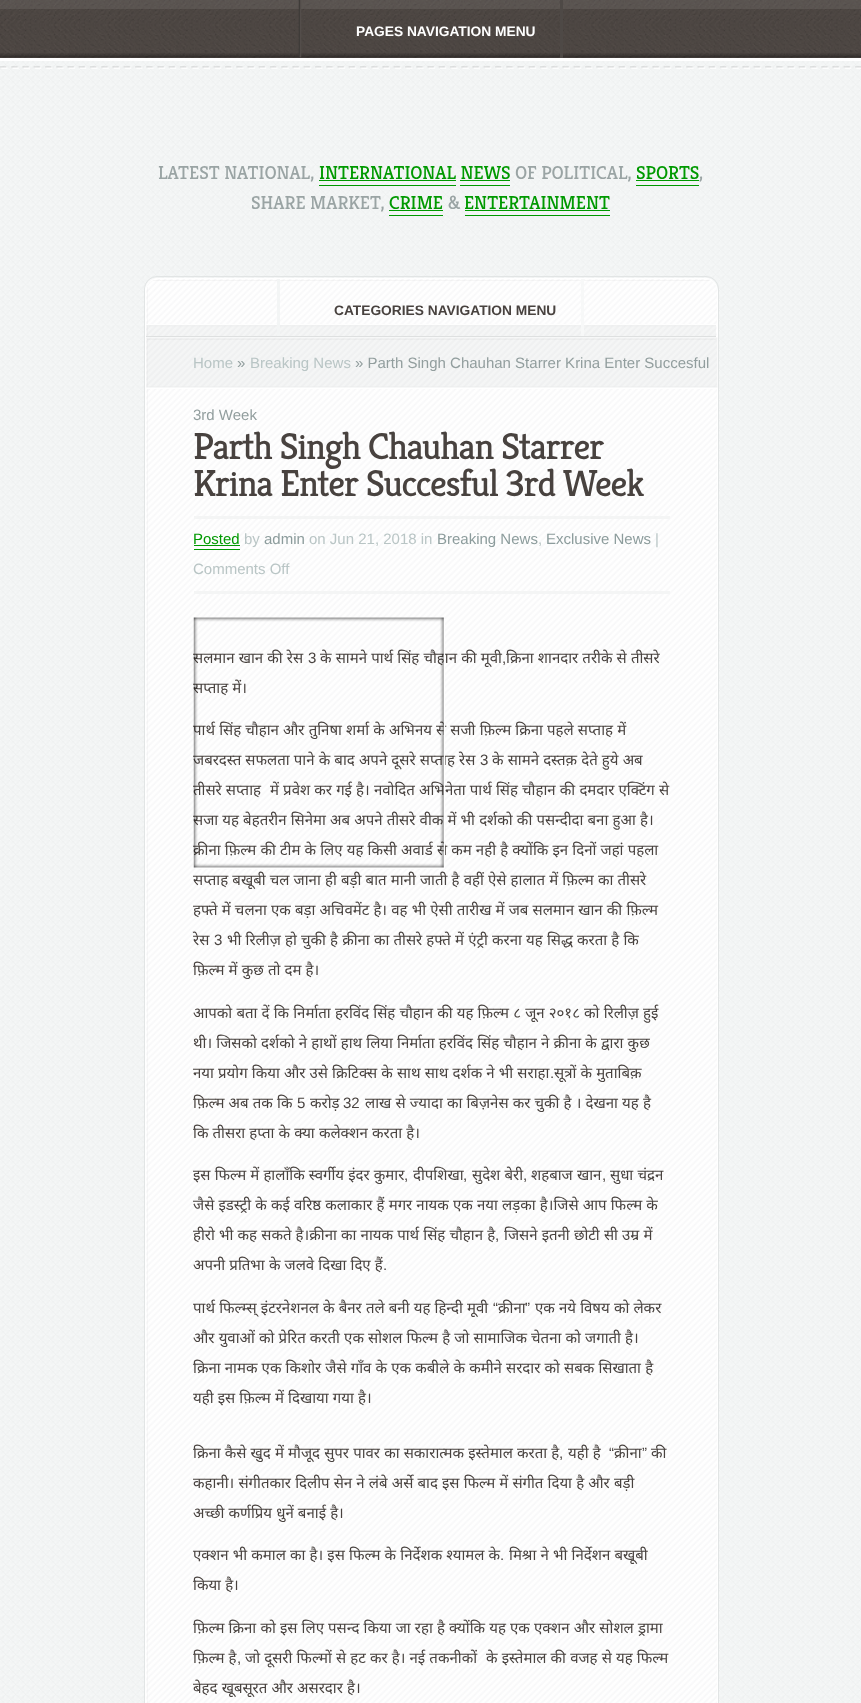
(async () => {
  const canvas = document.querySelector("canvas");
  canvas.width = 861;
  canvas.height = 1703;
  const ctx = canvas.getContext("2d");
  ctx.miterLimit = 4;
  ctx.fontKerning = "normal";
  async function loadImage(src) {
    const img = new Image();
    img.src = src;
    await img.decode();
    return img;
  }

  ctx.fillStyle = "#ffffff";
  ctx.fillRect(0, 0, 861, 1703);
  ctx.drawImage(await loadImage("img/1.png"), 0, 0, 861, 58);
  ctx.fillStyle = "rgba(255, 255, 255, 0.08)";
  ctx.fillRect(0, 0, 861, 9);
  ctx.drawImage(await loadImage("img/3.png"), 0, 53, 861, 5);
  ctx.drawImage(await loadImage("img/2.png"), 298, 0, 4, 58);
  ctx.fillStyle = "#4e4946";
  ctx.fillRect(560, 0, 3, 58);
  ctx.fillStyle = "#fafcfc";
  ctx.fillRect(0, 61, 861, 1642);
  ctx.drawImage(await loadImage("img/4.png"), 0, 61, 861, 1642);
  ctx.drawImage(await loadImage("img/5.png"), 0, 66, 861, 3);
  for (const [x, y, w, h, color] of [
    [319, 185, 137, 1, "#009900"],
    [319, 180, 137, 1, "#009900"],
    [636, 185, 63, 1, "#009900"],
    [636, 180, 63, 1, "#009900"],
    [460, 180, 50, 1, "#009900"],
    [460, 185, 50, 1, "#009900"],
    [389, 215, 54, 1, "#009900"],
    [389, 210, 54, 1, "#009900"],
    [465, 215, 145, 1, "#009900"],
    [465, 210, 145, 1, "#009900"],
  ]) {
    ctx.fillStyle = color;
    ctx.fillRect(x, y, w, h);
  }
  ctx.beginPath();
  ctx.roundRect(144.5, 276.5, 574, 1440, 12.5);
  ctx.strokeStyle = "#e2e5e5";
  ctx.stroke();
  ctx.drawImage(await loadImage("img/6.png"), 145, 278, 572, 1425);
  ctx.beginPath();
  ctx.roundRect(145.5, 278.5, 572, 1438, 12.5);
  ctx.strokeStyle = "#ffffff";
  ctx.stroke();
  ctx.drawImage(await loadImage("img/7.png"), 147, 287, 1, 1416);
  ctx.drawImage(await loadImage("img/8.png"), 153, 280, 557, 1);
  ctx.drawImage(await loadImage("img/9.png"), 146, 324, 570, 12);
  ctx.fillStyle = "#f3f5f5";
  ctx.fillRect(277, 279, 3, 57);
  ctx.fillStyle = "#f7f8f8";
  ctx.fillRect(581, 279, 3, 57);
  ctx.drawImage(await loadImage("img/11.png"), 146, 336, 572, 53);
  ctx.drawImage(await loadImage("img/10.png"), 147, 339, 569, 1);
  for (const [x, y, w, h, color] of [
    [146, 336, 570, 1, "#dee0e0"],
    [194, 516, 476, 3, "#f4f5f5"],
    [194, 591, 476, 3, "#f4f5f5"],
    [194, 549, 46, 1, "#009900"],
    [194, 545, 46, 1, "#009900"],
  ]) {
    ctx.fillStyle = color;
    ctx.fillRect(x, y, w, h);
  }
  ctx.font = "bold 13.75px Liberation Sans";
  ctx.fillStyle = "#ffffff";
  ctx.fillText("PAGES NAVIGATION MENU", 356, 36);
  ctx.font = "18.75px Kreon";
  ctx.fillStyle = "#9aa4a4";
  ctx.fillText("LATEST NATIONAL,", 158, 179);
  ctx.fillStyle = "#009900";
  ctx.fillText("INTERNATIONAL NEWS", 319, 179);
  ctx.fillStyle = "#9aa4a4";
  ctx.fillText("OF POLITICAL,", 515, 179);
  ctx.fillStyle = "#009900";
  ctx.fillText("SPORTS", 636, 179);
  ctx.fillStyle = "#9aa4a4";
  ctx.fillText(",", 699, 179);
  ctx.fillText("SHARE MARKET,", 251, 209);
  ctx.fillStyle = "#009900";
  ctx.fillText("CRIME", 389, 209);
  ctx.fillStyle = "#9aa4a4";
  ctx.fillText("&", 448, 209);
  ctx.fillStyle = "#009900";
  ctx.fillText("ENTERTAINMENT", 464, 209);
  ctx.font = "bold 13.75px Liberation Sans";
  ctx.fillStyle = "#48423f";
  ctx.fillText("CATEGORIES NAVIGATION MENU", 334, 315);
  ctx.font = "15px Liberation Sans";
  ctx.fillStyle = "#b9c5c5";
  ctx.fillText("Home", 193, 368);
  ctx.fillStyle = "#929e9e";
  ctx.fillText("»", 237, 368);
  ctx.fillStyle = "#b9c5c5";
  ctx.fillText("Breaking News", 250, 368);
  ctx.fillStyle = "#929e9e";
  ctx.fillText("» Parth Singh Chauhan Starrer Krina Enter Succesful", 355, 368);
  ctx.fillText("3rd Week", 193, 420);
  ctx.letterSpacing = "-1.25px";
  ctx.font = "37.5px Kreon";
  ctx.fillStyle = "#48423f";
  ctx.fillText("Parth Singh Chauhan Starrer", 193, 459);
  ctx.fillText("Krina Enter Succesful 3rd Week", 193, 496);
  ctx.letterSpacing = "0px";
  ctx.font = "15px Liberation Sans";
  ctx.fillStyle = "#009900";
  ctx.fillText("Posted", 193, 544);
  ctx.fillStyle = "#b9c5c5";
  ctx.fillText("by", 244, 544);
  ctx.fillStyle = "#8c9c9c";
  ctx.fillText("admin", 264, 544);
  ctx.fillStyle = "#b9c5c5";
  ctx.fillText("on Jun 21, 2018 in", 309, 544);
  ctx.fillStyle = "#8c9c9c";
  ctx.fillText("Breaking News", 437, 544);
  ctx.fillStyle = "#b9c5c5";
  ctx.fillText(",", 538, 544);
  ctx.fillStyle = "#8c9c9c";
  ctx.fillText("Exclusive News", 546, 544);
  ctx.fillStyle = "#b9c5c5";
  ctx.fillText("|", 655, 544);
  ctx.fillText("Comments Off", 193, 574);
  ctx.wordSpacing = "0.25px";
  ctx.font = "15px Noto Sans";
  ctx.fillStyle = "#48423f";
  ctx.fillText("सलमान खान की रेस", 193, 663);
  ctx.wordSpacing = "0px";
  ctx.font = "15px Liberation Sans";
  ctx.fillText("3", 308, 663);
  ctx.wordSpacing = "0.25px";
  ctx.font = "15px Noto Sans";
  ctx.fillText("के सामने पार्थ सिंह चौहान की मूवी क्रिना शानदार तरीके से तीसरे", 320, 663);
  ctx.wordSpacing = "0px";
  ctx.font = "15px Liberation Sans";
  ctx.fillText(",", 502, 663);
  ctx.wordSpacing = "0.25px";
  ctx.font = "15px Noto Sans";
  for (const [text, x, y] of [
    ["सप्ताह में।", 193, 693],
    ["पार्थ सिंह चौहान और तुनिषा शर्मा के अभिनय से सजी फ़िल्म क्रिना पहले सप्ताह में", 193, 735],
    ["जबरदस्त सफलता पाने के बाद अपने दूसरे सप्ताह रेस", 193, 765],
  ]) {
    ctx.fillText(text, x, y);
  }
  ctx.wordSpacing = "0px";
  ctx.font = "15px Liberation Sans";
  ctx.fillText("3", 480, 765);
  ctx.wordSpacing = "0.25px";
  ctx.font = "15px Noto Sans";
  for (const [text, x, y] of [
    ["के सामने दस्तक़ देते हुये अब", 492, 765],
    ["तीसरे सप्ताह", 193, 795],
    ["में प्रवेश कर गई है। नवोदित अभिनेता पार्थ सिंह चौहान की दमदार एक्टिंग से", 270, 795],
    ["सजा यह बेहतरीन सिनेमा अब अपने तीसरे वीक में भी दर्शको की पसन्दीदा बना हुआ है।", 193, 825],
    ["क्रीना फ़िल्म की टीम के लिए यह किसी अवार्ड से कम नही है क्योंकि इन दिनों जहां पहला", 193, 855],
  ]) {
    ctx.fillText(text, x, y);
  }
  ctx.drawImage(await loadImage("img/12.png"), 193, 617, 252, 252);
  ctx.fillText("सप्ताह बखूबी चल जाना ही बड़ी बात मानी जाती है वहीं ऐसे हालात में फ़िल्म का तीसरे", 193, 885);
  ctx.fillText("हफ्ते में चलना एक बड़ा अचिवमेंट है। वह भी ऐसी तारीख में जब सलमान खान की फ़िल्म", 193, 915);
  ctx.wordSpacing = "0px";
  ctx.fillText("रेस", 193, 945);
  ctx.font = "15px Liberation Sans";
  ctx.fillText("3", 214, 945);
  ctx.wordSpacing = "0.25px";
  ctx.font = "15px Noto Sans";
  for (const [text, x, y] of [
    ["भी रिलीज़ हो चुकी है क्रीना का तीसरे हफ्ते में एंट्री करना यह सिद्ध करता है कि", 227, 945],
    ["फ़िल्म में कुछ तो दम है।", 193, 975],
    ["आपको बता दें कि निर्माता हरविंद सिंह चौहान की यह फ़िल्म ८ जून २०१८ को रिलीज़ हुई", 193, 1018],
    ["थी। जिसको दर्शको ने हाथों हाथ लिया निर्माता हरविंद सिंह चौहान ने क्रीना के द्वारा कुछ", 193, 1048],
    ["नया प्रयोग किया और उसे क्रिटिक्स के साथ साथ दर्शक ने भी सराहा", 193, 1078],
  ]) {
    ctx.fillText(text, x, y);
  }
  ctx.wordSpacing = "0px";
  ctx.font = "15px Liberation Sans";
  ctx.fillText(".", 550, 1078);
  ctx.wordSpacing = "0.25px";
  ctx.font = "15px Noto Sans";
  ctx.fillText("सूत्रों के मुताबिक़", 554, 1078);
  ctx.fillText("फ़िल्म अब तक कि", 193, 1108);
  ctx.wordSpacing = "0px";
  ctx.font = "15px Liberation Sans";
  ctx.fillText("5", 297, 1108);
  ctx.font = "15px Noto Sans";
  ctx.fillText("करोड़", 310, 1108);
  ctx.font = "15px Liberation Sans";
  ctx.fillText("32", 343, 1108);
  ctx.wordSpacing = "0.25px";
  ctx.font = "15px Noto Sans";
  for (const [text, x, y] of [
    ["लाख से ज्यादा का बिज़नेस कर चुकी है । देखना यह है", 365, 1108],
    ["कि तीसरा हप्ता के क्या कलेक्शन करता है।", 193, 1138],
    ["इस फिल्म में हालाँकि स्वर्गीय इंदर कुमार", 193, 1180],
  ]) {
    ctx.fillText(text, x, y);
  }
  ctx.wordSpacing = "0px";
  ctx.font = "15px Liberation Sans";
  ctx.fillText(",", 404, 1180);
  ctx.font = "15px Noto Sans";
  ctx.fillText("दीपशिखा", 413, 1180);
  ctx.wordSpacing = "0.25px";
  ctx.fillText("शहबाज खान", 531, 1180);
  ctx.wordSpacing = "0px";
  ctx.font = "15px Liberation Sans";
  ctx.fillText(",", 463, 1180);
  ctx.wordSpacing = "0.25px";
  ctx.font = "15px Noto Sans";
  ctx.fillText("सुदेश बेरी", 472, 1180);
  ctx.wordSpacing = "0px";
  ctx.font = "15px Liberation Sans";
  ctx.fillText(",", 523, 1180);
  ctx.fillText(",", 602, 1180);
  ctx.wordSpacing = "0.25px";
  ctx.font = "15px Noto Sans";
  for (const [text, x, y] of [
    ["सुधा चंद्रन", 610, 1180],
    ["जैसे इडस्ट्री के कई वरिष्ठ कलाकार हैं मगर नायक एक नया लड़का है।जिसे आप फिल्म के", 193, 1210],
    ["हीरो भी कह सकते है।क्रीना का नायक पार्थ सिंह चौहान है", 193, 1240],
  ]) {
    ctx.fillText(text, x, y);
  }
  ctx.wordSpacing = "0px";
  ctx.font = "15px Liberation Sans";
  ctx.fillText(",", 495, 1240);
  ctx.wordSpacing = "0.25px";
  ctx.font = "15px Noto Sans";
  ctx.fillText("जिसने इतनी छोटी सी उम्र में", 504, 1240);
  ctx.fillText("अपनी प्रतिभा के जलवे दिखा दिए हैं", 193, 1270);
  ctx.wordSpacing = "0px";
  ctx.font = "15px Liberation Sans";
  ctx.fillText(".", 383, 1270);
  ctx.wordSpacing = "0.25px";
  ctx.font = "15px Noto Sans";
  ctx.fillText("पार्थ फिल्म्स् इंटरनेशनल के बैनर तले बनी यह हिन्दी मूवी", 193, 1313);
  ctx.fillText("एक नये विषय को लेकर", 535, 1313);
  ctx.wordSpacing = "0px";
  ctx.font = "15px Liberation Sans";
  ctx.fillText("“", 493, 1313);
  ctx.font = "15px Noto Sans";
  ctx.fillText("क्रीना", 498, 1313);
  ctx.font = "15px Liberation Sans";
  ctx.fillText("”", 525, 1313);
  ctx.wordSpacing = "0.25px";
  ctx.font = "15px Noto Sans";
  for (const [text, x, y] of [
    ["और युवाओं को प्रेरित करती एक सोशल फिल्म है जो सामाजिक चेतना को जगाती है।", 193, 1343],
    ["क्रिना नामक एक किशोर जैसे गाँव के एक कबीले के कमीने सरदार को सबक सिखाता है", 193, 1373],
    ["यही इस फ़िल्म में दिखाया गया है।", 193, 1403],
    ["क्रिना कैसे खुद में मौजूद सुपर पावर का सकारात्मक इस्तेमाल करता है", 193, 1458],
    ["यही है", 568, 1458],
  ]) {
    ctx.fillText(text, x, y);
  }
  ctx.wordSpacing = "0px";
  ctx.font = "15px Liberation Sans";
  ctx.fillText("“", 609, 1458);
  ctx.font = "15px Noto Sans";
  ctx.fillText("क्रीना", 614, 1458);
  ctx.font = "15px Liberation Sans";
  ctx.fillText("”", 642, 1458);
  ctx.font = "15px Noto Sans";
  ctx.fillText("की", 651, 1458);
  ctx.font = "15px Liberation Sans";
  ctx.fillText(",", 559, 1458);
  ctx.wordSpacing = "0.25px";
  ctx.font = "15px Noto Sans";
  for (const [text, x, y] of [
    ["कहानी। संगीतकार दिलीप सेन ने लंबे अर्से बाद इस फिल्म में संगीत दिया है और बड़ी", 193, 1488],
    ["अच्छी कर्णप्रिय धुनें बनाई है।", 193, 1518],
    ["एक्शन भी कमाल का है। इस फिल्म के निर्देशक श्यामल के", 193, 1560],
  ]) {
    ctx.fillText(text, x, y);
  }
  ctx.wordSpacing = "0px";
  ctx.font = "15px Liberation Sans";
  ctx.fillText(".", 500, 1560);
  ctx.wordSpacing = "0.25px";
  ctx.font = "15px Noto Sans";
  for (const [text, x, y] of [
    ["मिश्रा ने भी निर्देशन बखूबी", 509, 1560],
    ["किया है।", 193, 1590],
    ["फ़िल्म क्रिना को इस लिए पसन्द किया जा रहा है क्योंकि यह एक एक्शन और सोशल ड्रामा", 193, 1633],
    ["फ़िल्म है", 193, 1663],
  ]) {
    ctx.fillText(text, x, y);
  }
  ctx.wordSpacing = "0px";
  ctx.font = "15px Liberation Sans";
  ctx.fillText(",", 237, 1663);
  ctx.wordSpacing = "0.25px";
  ctx.font = "15px Noto Sans";
  for (const [text, x, y] of [
    ["जो दूसरी फिल्मों से हट कर है। नई तकनीकों", 245, 1663],
    ["के इस्तेमाल की वजह से यह फिल्म", 486, 1663],
    ["बेहद खूबसूरत और असरदार है।", 193, 1693],
  ]) {
    ctx.fillText(text, x, y);
  }
})();
